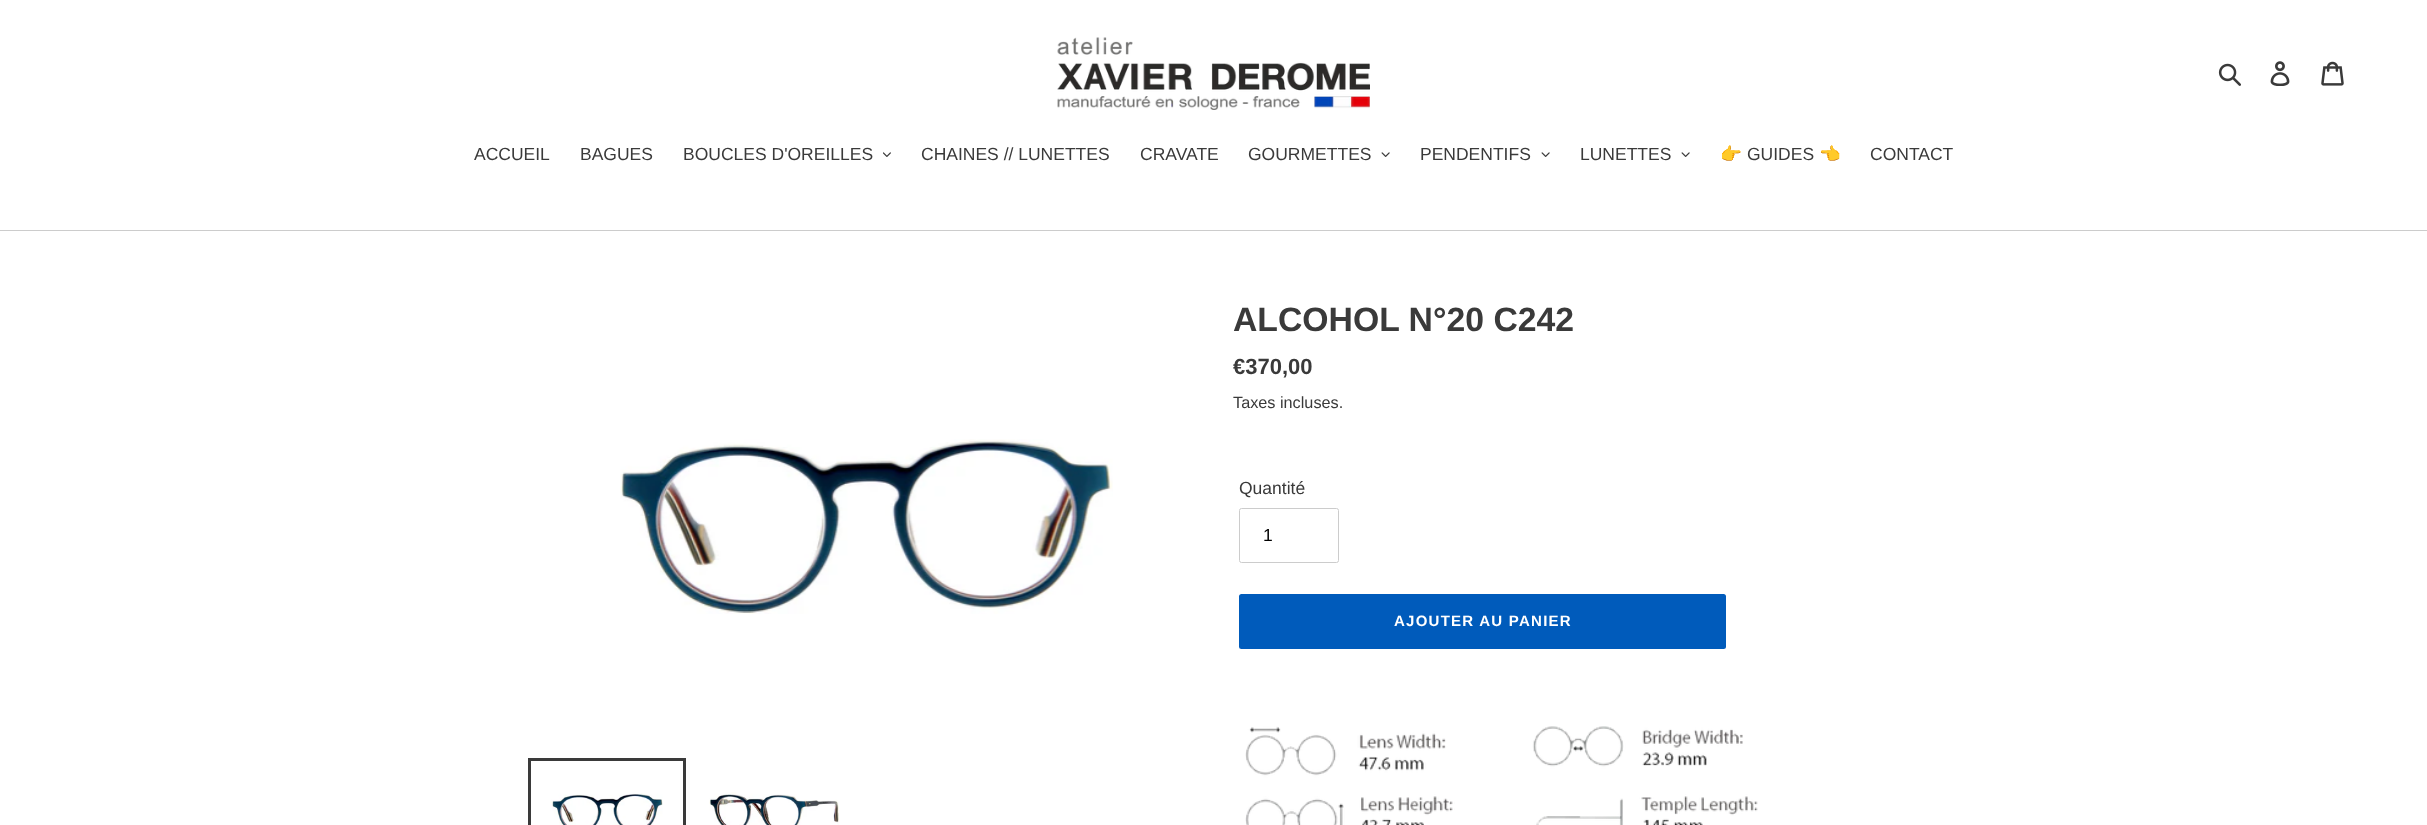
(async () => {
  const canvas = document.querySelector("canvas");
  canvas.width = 2427;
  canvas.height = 825;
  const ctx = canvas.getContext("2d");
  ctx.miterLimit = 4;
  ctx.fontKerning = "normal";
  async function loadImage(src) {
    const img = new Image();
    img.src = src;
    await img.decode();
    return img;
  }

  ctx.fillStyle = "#ffffff";
  ctx.fillRect(0, 0, 2427, 825);
  ctx.drawImage(await loadImage("img/1.png"), 1057, 37, 313, 73);
  ctx.drawImage(await loadImage("img/2.png"), 2218, 63, 23, 23);
  ctx.drawImage(await loadImage("img/3.png"), 2270, 61, 20, 25);
  ctx.drawImage(await loadImage("img/4.png"), 2321, 61, 23, 25);
  ctx.fillStyle = "#cccccc";
  ctx.fillRect(0, 230, 2427, 1);
  ctx.drawImage(await loadImage("img/5.png"), 883, 152, 8, 5);
  ctx.drawImage(await loadImage("img/6.png"), 1381, 152, 9, 5);
  ctx.drawImage(await loadImage("img/6.png"), 1541, 152, 9, 5);
  ctx.drawImage(await loadImage("img/6.png"), 1681, 152, 9, 5);
  ctx.drawImage(await loadImage("img/7.png"), 620, 439, 493, 175);
  ctx.strokeStyle = "#3a3a3a";
  ctx.lineWidth = 3;
  ctx.strokeRect(529.5, 759.5, 155, 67);
  ctx.drawImage(await loadImage("img/8.png"), 550, 793, 113, 32);
  ctx.drawImage(await loadImage("img/9.png"), 709, 792, 130, 33);
  ctx.beginPath();
  ctx.roundRect(1239.5, 508.5, 99, 54, 2);
  ctx.strokeStyle = "#cccccc";
  ctx.lineWidth = 1;
  ctx.stroke();
  ctx.fillStyle = "#005bbb";
  ctx.beginPath();
  ctx.roundRect(1239, 594, 487, 55, 2.5);
  ctx.fill();
  ctx.drawImage(await loadImage("img/10.png"), 1245, 726, 513, 99);
  ctx.font = "17.5px Liberation Sans";
  ctx.fillStyle = "#3a3a3a";
  for (const [text, x, y] of [
    ["ACCUEIL", 474, 160],
    ["BAGUES", 580, 160],
    ["BOUCLES D'OREILLES", 683, 160],
    ["CHAINES // LUNETTES", 921, 160],
    ["CRAVATE", 1140, 160],
    ["GOURMETTES", 1248, 160],
    ["PENDENTIFS", 1420, 160],
    ["LUNETTES", 1580, 160],
  ]) {
    ctx.fillText(text, x, y);
  }
  ctx.font = "17.5px Noto Color Emoji";
  ctx.fillText("👉", 1720, 160);
  ctx.font = "17.5px Liberation Sans";
  ctx.fillText("GUIDES", 1747, 160);
  ctx.font = "17.5px Noto Color Emoji";
  ctx.fillText("👈", 1819, 160);
  ctx.font = "17.5px Liberation Sans";
  ctx.fillText("CONTACT", 1870, 160);
  ctx.font = "bold 33.75px Liberation Sans";
  ctx.fillText("ALCOHOL N°20 C242", 1233, 331);
  ctx.font = "bold 22px Liberation Sans";
  ctx.fillText("€370,00", 1233, 374);
  ctx.font = "16.25px Liberation Sans";
  ctx.fillText("Taxes incluses.", 1233, 408);
  ctx.font = "17.5px Liberation Sans";
  ctx.fillText("Quantité", 1239, 494);
  ctx.fillStyle = "#000000";
  ctx.fillText("1", 1263, 541);
  ctx.letterSpacing = "1.25px";
  ctx.font = "bold 15px Liberation Sans";
  ctx.fillStyle = "#ffffff";
  ctx.fillText("AJOUTER AU PANIER", 1394, 626);
})();
